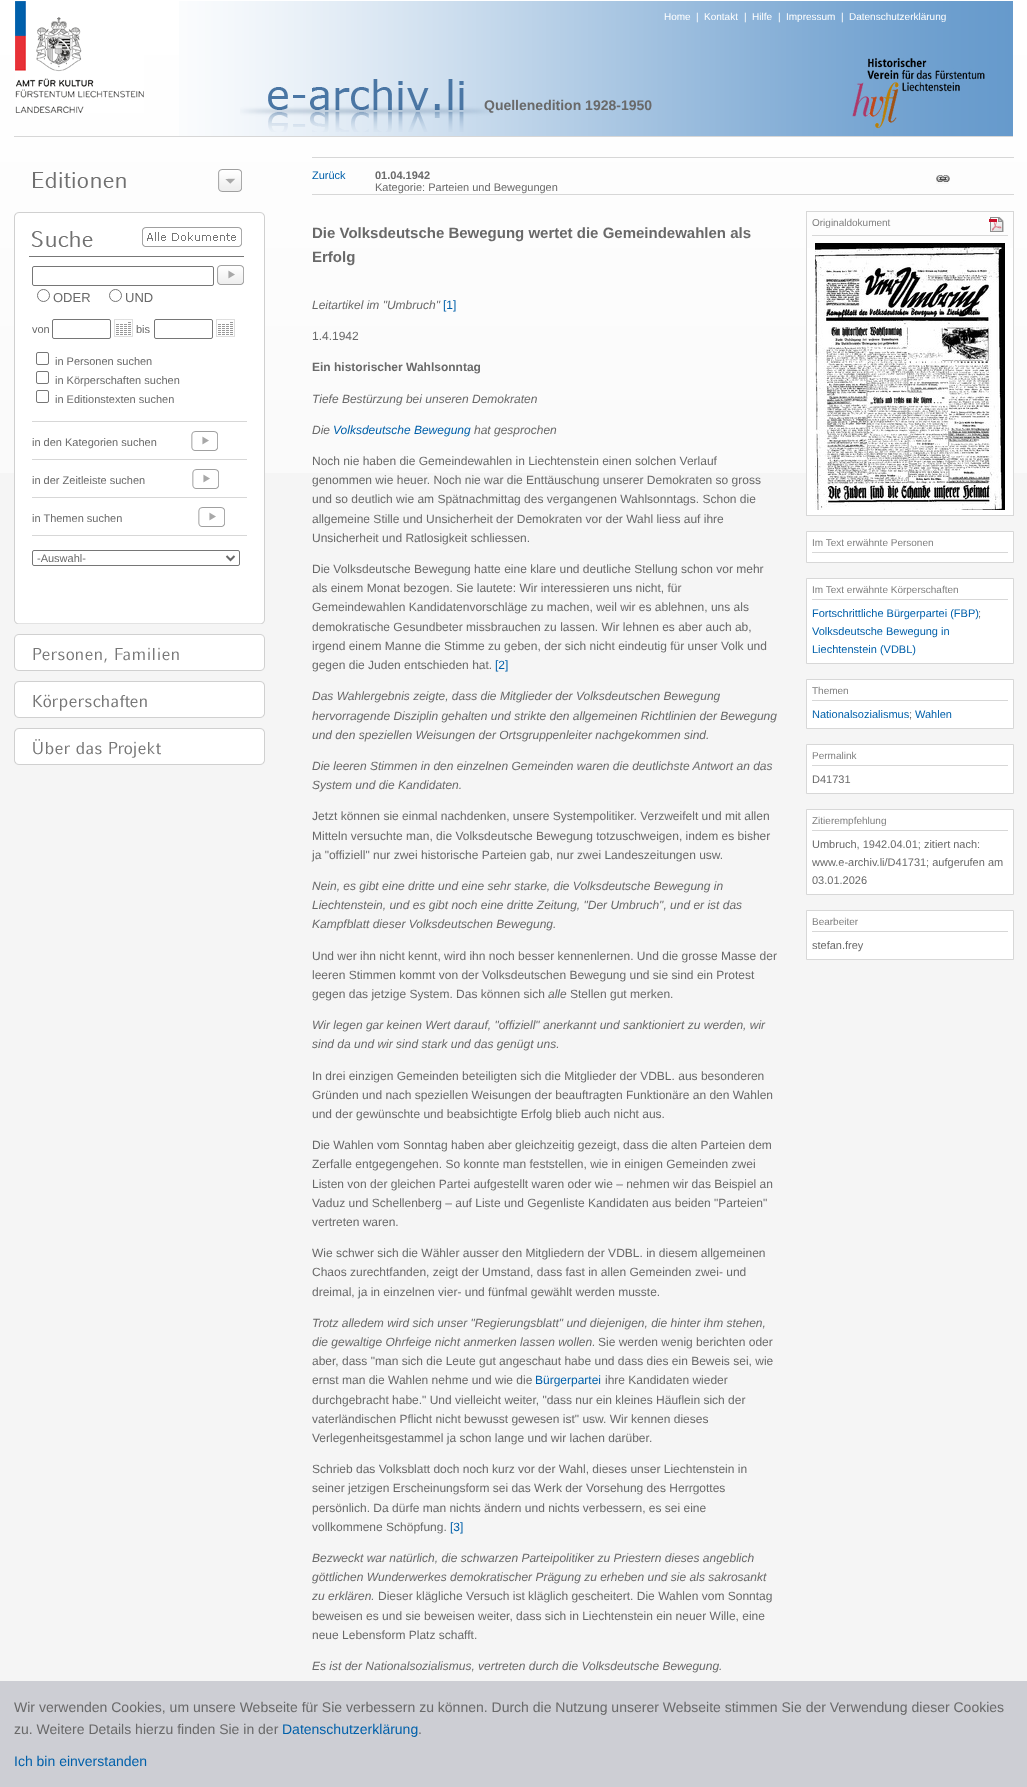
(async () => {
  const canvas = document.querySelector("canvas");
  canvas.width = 1027;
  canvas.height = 1787;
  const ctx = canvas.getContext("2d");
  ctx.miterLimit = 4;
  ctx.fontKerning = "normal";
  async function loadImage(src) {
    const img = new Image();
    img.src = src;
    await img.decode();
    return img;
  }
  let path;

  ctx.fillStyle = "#f5f5f5";
  ctx.fillRect(0, 0, 1027, 1787);
  ctx.drawImage(await loadImage("img/1.png"), 0, 0, 1027, 473);
  ctx.drawImage(await loadImage("img/2.png"), 179, 1, 834, 135);
  ctx.drawImage(await loadImage("img/3.png"), 15, 1, 129, 112);
  ctx.drawImage(await loadImage("img/4.png"), 240, 79, 252, 53);
  ctx.drawImage(await loadImage("img/5.png"), 852, 58, 133, 71);
  ctx.fillStyle = "#d7d7d7";
  ctx.fillRect(14, 136, 999, 1);
  ctx.drawImage(await loadImage("img/6.png"), 33, 172, 93, 16);
  ctx.drawImage(await loadImage("img/7.png"), 218, 169, 24, 23);
  ctx.drawImage(await loadImage("img/8.png"), 14, 212, 251, 412);
  ctx.drawImage(await loadImage("img/9.png"), 142, 227, 100, 20);
  ctx.beginPath();
  ctx.roundRect(32.5, 266.5, 181, 19, 1.5);
  ctx.strokeStyle = "#767676";
  ctx.stroke();
  ctx.drawImage(await loadImage("img/10.png"), 217, 265, 27, 20);
  ctx.beginPath();
  ctx.arc(43.5, 295.5, 6, 0, Math.PI * 2);
  ctx.stroke();
  ctx.beginPath();
  ctx.arc(115.5, 295.5, 6, 0, Math.PI * 2);
  ctx.stroke();
  ctx.beginPath();
  ctx.roundRect(52.5, 319.5, 58, 19, 1.5);
  ctx.stroke();
  ctx.drawImage(await loadImage("img/11.png"), 114, 319, 19, 18);
  ctx.beginPath();
  ctx.roundRect(154.5, 319.5, 58, 19, 1.5);
  ctx.stroke();
  ctx.drawImage(await loadImage("img/11.png"), 216, 319, 19, 18);
  ctx.beginPath();
  ctx.roundRect(36.5, 352.5, 12, 12, 1.5);
  ctx.stroke();
  ctx.beginPath();
  ctx.roundRect(36.5, 371.5, 12, 12, 1.5);
  ctx.stroke();
  ctx.beginPath();
  ctx.roundRect(36.5, 390.5, 12, 12, 1.5);
  ctx.stroke();
  ctx.fillRect(32, 421, 215, 1);
  ctx.drawImage(await loadImage("img/12.png"), 191, 431, 27, 20);
  ctx.fillRect(32, 459, 215, 1);
  ctx.drawImage(await loadImage("img/12.png"), 192, 469, 27, 20);
  ctx.fillRect(32, 497, 215, 1);
  ctx.drawImage(await loadImage("img/12.png"), 198, 507, 27, 20);
  ctx.fillRect(32, 535, 215, 1);
  ctx.beginPath();
  ctx.roundRect(32.5, 550.5, 207, 15, 1.5);
  ctx.stroke();
  path = new Path2D("M226.5 556L230.5 560L234.5 556");
  ctx.strokeStyle = "#696969";
  ctx.lineWidth = 2;
  ctx.stroke(path);
  ctx.drawImage(await loadImage("img/13.png"), 14, 634, 251, 37);
  ctx.drawImage(await loadImage("img/14.png"), 14, 681, 251, 37);
  ctx.drawImage(await loadImage("img/15.png"), 14, 728, 251, 37);
  ctx.fillRect(312, 157, 702, 1);
  ctx.drawImage(await loadImage("img/16.png"), 936, 175, 14, 9);
  ctx.fillRect(312, 194, 702, 1);
  ctx.fillStyle = "#ffffff";
  ctx.fillRect(807, 248, 206, 267);
  ctx.strokeStyle = "#d7d7d7";
  ctx.lineWidth = 1;
  ctx.strokeRect(806.5, 211.5, 207, 304);
  ctx.drawImage(await loadImage("img/17.png"), 989, 217, 15, 15);
  ctx.fillStyle = "#d7d7d7";
  ctx.fillRect(812, 235, 196, 1);
  ctx.drawImage(await loadImage("img/18.png"), 815, 243, 190, 267);
  ctx.fillStyle = "#ffffff";
  ctx.beginPath();
  ctx.rect(806.5, 531.5, 207, 31);
  ctx.fill();
  ctx.stroke();
  ctx.fillStyle = "#d7d7d7";
  ctx.fillRect(812, 552, 196, 1);
  ctx.fillStyle = "#ffffff";
  ctx.beginPath();
  ctx.rect(806.5, 578.5, 207, 85);
  ctx.fill();
  ctx.stroke();
  ctx.fillStyle = "#d7d7d7";
  ctx.fillRect(812, 599, 196, 1);
  ctx.fillStyle = "#ffffff";
  ctx.beginPath();
  ctx.rect(806.5, 679.5, 207, 49);
  ctx.fill();
  ctx.stroke();
  ctx.fillStyle = "#d7d7d7";
  ctx.fillRect(812, 700, 196, 1);
  ctx.fillStyle = "#ffffff";
  ctx.beginPath();
  ctx.rect(806.5, 744.5, 207, 49);
  ctx.fill();
  ctx.stroke();
  ctx.fillStyle = "#d7d7d7";
  ctx.fillRect(812, 765, 196, 1);
  ctx.fillStyle = "#ffffff";
  ctx.beginPath();
  ctx.rect(806.5, 809.5, 207, 85);
  ctx.fill();
  ctx.stroke();
  ctx.fillStyle = "#d7d7d7";
  ctx.fillRect(812, 830, 196, 1);
  ctx.fillStyle = "#ffffff";
  ctx.beginPath();
  ctx.rect(806.5, 910.5, 207, 49);
  ctx.fill();
  ctx.stroke();
  ctx.fillStyle = "#d7d7d7";
  ctx.fillRect(812, 931, 196, 1);
  ctx.fillStyle = "#cdced4";
  ctx.fillRect(0, 1681, 1027, 106);
  ctx.font = "10px Liberation Sans";
  ctx.fillStyle = "#ffffff";
  for (const [text, x, y] of [
    ["Home", 664, 20],
    ["|", 696, 20],
    ["Kontakt", 704, 20],
    ["|", 744, 20],
    ["Hilfe", 752, 20],
    ["|", 778, 20],
    ["Impressum", 786, 20],
    ["|", 841, 20],
    ["Datenschutzerklärung", 849, 20],
  ]) {
    ctx.fillText(text, x, y);
  }
  ctx.font = "bold 14px Liberation Sans";
  ctx.fillStyle = "#696969";
  ctx.fillText("Quellenedition 1928-1950", 484, 110);
  ctx.font = "13px Liberation Sans";
  ctx.fillText("ODER", 53, 302);
  ctx.fillText("UND", 125, 302);
  ctx.font = "11px Liberation Sans";
  for (const [text, x, y] of [
    ["von", 32, 333],
    ["bis", 136, 333],
    ["in Personen suchen", 55, 365],
    ["in Körperschaften suchen", 55, 384],
    ["in Editionstexten suchen", 55, 403],
    ["in den Kategorien suchen", 32, 446],
    ["in der Zeitleiste suchen", 32, 484],
    ["in Themen suchen", 32, 522],
    ["-Auswahl-", 37, 562],
  ]) {
    ctx.fillText(text, x, y);
  }
  ctx.fillStyle = "#0060aa";
  ctx.fillText("Zurück", 312, 179);
  ctx.font = "bold 11px Liberation Sans";
  ctx.fillStyle = "#696969";
  ctx.fillText("01.04.1942", 375, 179);
  ctx.font = "11px Liberation Sans";
  ctx.fillText("Kategorie: Parteien und Bewegungen", 375, 191);
  ctx.font = "bold 15px Liberation Sans";
  ctx.fillText("Die Volksdeutsche Bewegung wertet die Gemeindewahlen als", 312, 238);
  ctx.fillText("Erfolg", 312, 262);
  ctx.font = "italic 12px Liberation Sans";
  ctx.fillText("Leitartikel im \"Umbruch\"", 312, 309);
  ctx.font = "12px Liberation Sans";
  ctx.fillStyle = "#0060aa";
  ctx.fillText("[1]", 443, 309);
  ctx.fillStyle = "#696969";
  ctx.fillText("1.4.1942", 312, 340);
  ctx.font = "bold 12px Liberation Sans";
  ctx.fillText("Ein historischer Wahlsonntag", 312, 371);
  ctx.font = "italic 12px Liberation Sans";
  ctx.fillText("Tiefe Bestürzung bei unseren Demokraten", 312, 403);
  ctx.fillText("Die", 312, 434);
  ctx.fillStyle = "#0060aa";
  ctx.fillText("Volksdeutsche Bewegung", 333, 434);
  ctx.fillStyle = "#696969";
  ctx.fillText("hat gesprochen", 474, 434);
  ctx.font = "12px Liberation Sans";
  for (const [text, x, y] of [
    ["Noch nie haben die Gemeindewahlen in Liechtenstein einen solchen Verlauf", 312, 465],
    ["genommen wie heuer. Noch nie war die Enttäuschung unserer Demokraten so gross", 312, 484],
    ["und so deutlich wie am Spätnachmittag des vergangenen Wahlsonntags. Schon die", 312, 503],
    ["allgemeine Stille und Unsicherheit der Demokraten vor der Wahl liess auf ihre", 312, 523],
    ["Unsicherheit und Ratlosigkeit schliessen.", 312, 542],
    ["Die Volksdeutsche Bewegung hatte eine klare und deutliche Stellung schon vor mehr", 312, 573],
    ["als einem Monat bezogen. Sie lautete: Wir interessieren uns nicht, für", 312, 592],
    ["Gemeindewahlen Kandidatenvorschläge zu machen, weil wir es ablehnen, uns als", 312, 611],
    ["demokratische Gesundbeter missbrauchen zu lassen. Wir lehnen es aber auch ab,", 312, 631],
    ["irgend einem Manne die Stimme zu geben, der sich nicht eindeutig für unser Volk und", 312, 650],
    ["gegen die Juden entschieden hat.", 312, 669],
  ]) {
    ctx.fillText(text, x, y);
  }
  ctx.fillStyle = "#0060aa";
  ctx.fillText("[2]", 495, 669);
  ctx.font = "italic 12px Liberation Sans";
  ctx.fillStyle = "#696969";
  for (const [text, x, y] of [
    ["Das Wahlergebnis zeigte, dass die Mitglieder der Volksdeutschen Bewegung", 312, 700],
    ["hervorragende Disziplin gehalten und strikte den allgemeinen Richtlinien der Bewegung", 312, 720],
    ["und den speziellen Weisungen der Ortsgruppenleiter nachgekommen sind.", 312, 739],
    ["Die leeren Stimmen in den einzelnen Gemeinden waren die deutlichste Antwort an das", 312, 770],
    ["System und die Kandidaten.", 312, 789],
  ]) {
    ctx.fillText(text, x, y);
  }
  ctx.font = "12px Liberation Sans";
  for (const [text, x, y] of [
    ["Jetzt können sie einmal nachdenken, unsere Systempolitiker. Verzweifelt und mit allen", 312, 820],
    ["Mitteln versuchte man, die Volksdeutsche Bewegung totzuschweigen, indem es bisher", 312, 840],
    ["ja \"offiziell\" nur zwei historische Parteien gab, nur zwei Landeszeitungen usw.", 312, 859],
  ]) {
    ctx.fillText(text, x, y);
  }
  ctx.font = "italic 12px Liberation Sans";
  for (const [text, x, y] of [
    ["Nein, es gibt eine dritte und eine sehr starke, die Volksdeutsche Bewegung in", 312, 890],
    ["Liechtenstein, und es gibt noch eine dritte Zeitung, \"Der Umbruch\", und er ist das", 312, 909],
    ["Kampfblatt dieser Volksdeutschen Bewegung.", 312, 928],
  ]) {
    ctx.fillText(text, x, y);
  }
  ctx.font = "12px Liberation Sans";
  for (const [text, x, y] of [
    ["Und wer ihn nicht kennt, wird ihn noch besser kennenlernen. Und die grosse Masse der", 312, 960],
    ["leeren Stimmen kommt von der Volksdeutschen Bewegung und sie sind ein Protest", 312, 979],
    ["gegen das jetzige System. Das können sich", 312, 998],
  ]) {
    ctx.fillText(text, x, y);
  }
  ctx.font = "italic 12px Liberation Sans";
  ctx.fillText("alle", 548, 998);
  ctx.font = "12px Liberation Sans";
  ctx.fillText("Stellen gut merken.", 570, 998);
  ctx.font = "italic 12px Liberation Sans";
  ctx.fillText("Wir legen gar keinen Wert darauf, \"offiziell\" anerkannt und sanktioniert zu werden, wir", 312, 1029);
  ctx.fillText("sind da und wir sind stark und das genügt uns.", 312, 1048);
  ctx.font = "12px Liberation Sans";
  for (const [text, x, y] of [
    ["In drei einzigen Gemeinden beteiligten sich die Mitglieder der VDBL. aus besonderen", 312, 1080],
    ["Gründen und nach speziellen Weisungen der beauftragten Funktionäre an den Wahlen", 312, 1099],
    ["und der gewünschte und beabsichtigte Erfolg blieb auch nicht aus.", 312, 1118],
    ["Die Wahlen vom Sonntag haben aber gleichzeitig gezeigt, dass die alten Parteien dem", 312, 1149],
    ["Zerfalle entgegengehen. So konnte man feststellen, wie in einigen Gemeinden zwei", 312, 1168],
    ["Listen von der gleichen Partei aufgestellt waren oder wie – nehmen wir das Beispiel an", 312, 1188],
    ["Vaduz und Schellenberg – auf Liste und Gegenliste Kandidaten aus beiden \"Parteien\"", 312, 1207],
    ["vertreten waren.", 312, 1226],
    ["Wie schwer sich die Wähler ausser den Mitgliedern der VDBL. in diesem allgemeinen", 312, 1257],
    ["Chaos zurechtfanden, zeigt der Umstand, dass fast in allen Gemeinden zwei- und", 312, 1276],
    ["dreimal, ja in einzelnen vier- und fünfmal gewählt werden musste.", 312, 1296],
  ]) {
    ctx.fillText(text, x, y);
  }
  ctx.font = "italic 12px Liberation Sans";
  ctx.fillText("Trotz alledem wird sich unser \"Regierungsblatt\" und diejenigen, die hinter ihm stehen,", 312, 1327);
  ctx.fillText("die gewaltige Ohrfeige nicht anmerken lassen wollen.", 312, 1346);
  ctx.font = "12px Liberation Sans";
  for (const [text, x, y] of [
    ["Sie werden wenig berichten oder", 598, 1346],
    ["aber, dass \"man sich die Leute gut angeschaut habe und dass dies ein Beweis sei, wie", 312, 1365],
    ["ernst man die Wahlen nehme und wie die", 312, 1384],
  ]) {
    ctx.fillText(text, x, y);
  }
  ctx.fillStyle = "#0060aa";
  ctx.fillText("Bürgerpartei", 535, 1384);
  ctx.fillStyle = "#696969";
  for (const [text, x, y] of [
    ["ihre Kandidaten wieder", 605, 1384],
    ["durchgebracht habe.\" Und vielleicht weiter, \"dass nur ein kleines Häuflein sich der", 312, 1404],
    ["vaterländischen Pflicht nicht bewusst gewesen ist\" usw. Wir kennen dieses", 312, 1423],
    ["Verlegenheitsgestammel ja schon lange und wir lachen darüber.", 312, 1442],
    ["Schrieb das Volksblatt doch noch kurz vor der Wahl, dieses unser Liechtenstein in", 312, 1473],
    ["seiner jetzigen Erscheinungsform sei das Werk der Vorsehung des Herrgottes", 312, 1492],
    ["persönlich. Da dürfe man nichts ändern und nichts verbessern, es sei eine", 312, 1512],
    ["vollkommene Schöpfung.", 312, 1531],
  ]) {
    ctx.fillText(text, x, y);
  }
  ctx.fillStyle = "#0060aa";
  ctx.fillText("[3]", 450, 1531);
  ctx.font = "italic 12px Liberation Sans";
  ctx.fillStyle = "#696969";
  for (const [text, x, y] of [
    ["Bezweckt war natürlich, die schwarzen Parteipolitiker zu Priestern dieses angeblich", 312, 1562],
    ["göttlichen Wunderwerkes demokratischer Prägung zu erheben und sie als sakrosankt", 312, 1581],
    ["zu erklären.", 312, 1600],
  ]) {
    ctx.fillText(text, x, y);
  }
  ctx.font = "12px Liberation Sans";
  for (const [text, x, y] of [
    ["Dieser klägliche Versuch ist kläglich gescheitert. Die Wahlen vom Sonntag", 378, 1600],
    ["beweisen es und sie beweisen weiter, dass sich in Liechtenstein ein neuer Wille, eine", 312, 1620],
    ["neue Lebensform Platz schafft.", 312, 1639],
  ]) {
    ctx.fillText(text, x, y);
  }
  ctx.font = "italic 12px Liberation Sans";
  ctx.fillText("Es ist der Nationalsozialismus, vertreten durch die Volksdeutsche Bewegung.", 312, 1670);
  ctx.font = "10px Liberation Sans";
  ctx.fillStyle = "#808080";
  for (const [text, x, y] of [
    ["Originaldokument", 812, 226],
    ["Im Text erwähnte Personen", 812, 546],
    ["Im Text erwähnte Körperschaften", 812, 593],
  ]) {
    ctx.fillText(text, x, y);
  }
  ctx.font = "11px Liberation Sans";
  ctx.fillStyle = "#0060aa";
  ctx.fillText("Fortschrittliche Bürgerpartei (FBP)", 812, 617);
  ctx.fillStyle = "#696969";
  ctx.fillText(";", 978, 617);
  ctx.fillStyle = "#0060aa";
  ctx.fillText("Volksdeutsche Bewegung in", 812, 635);
  ctx.fillText("Liechtenstein (VDBL)", 812, 653);
  ctx.font = "10px Liberation Sans";
  ctx.fillStyle = "#808080";
  ctx.fillText("Themen", 812, 694);
  ctx.font = "11px Liberation Sans";
  ctx.fillStyle = "#0060aa";
  ctx.fillText("Nationalsozialismus", 812, 718);
  ctx.fillStyle = "#696969";
  ctx.fillText(";", 909, 718);
  ctx.fillStyle = "#0060aa";
  ctx.fillText("Wahlen", 915, 718);
  ctx.font = "10px Liberation Sans";
  ctx.fillStyle = "#808080";
  ctx.fillText("Permalink", 812, 759);
  ctx.font = "11px Liberation Sans";
  ctx.fillStyle = "#696969";
  ctx.fillText("D41731", 812, 783);
  ctx.font = "10px Liberation Sans";
  ctx.fillStyle = "#808080";
  ctx.fillText("Zitierempfehlung", 812, 824);
  ctx.font = "11px Liberation Sans";
  ctx.fillStyle = "#696969";
  for (const [text, x, y] of [
    ["Umbruch, 1942.04.01; zitiert nach:", 812, 848],
    ["www.e-archiv.li/D41731; aufgerufen am", 812, 866],
    ["03.01.2026", 812, 884],
  ]) {
    ctx.fillText(text, x, y);
  }
  ctx.font = "10px Liberation Sans";
  ctx.fillStyle = "#808080";
  ctx.fillText("Bearbeiter", 812, 925);
  ctx.font = "11px Liberation Sans";
  ctx.fillStyle = "#696969";
  ctx.fillText("stefan.frey", 812, 949);
  ctx.font = "14px Liberation Sans";
  ctx.fillText("Wir verwenden Cookies, um unsere Webseite für Sie verbessern zu können. Durch die Nutzung unserer Webseite stimmen Sie der Verwendung dieser Cookies", 14, 1712);
  ctx.fillText("zu. Weitere Details hierzu finden Sie in der", 14, 1734);
  ctx.fillStyle = "#0060aa";
  ctx.fillText("Datenschutzerklärung", 282, 1734);
  ctx.fillStyle = "#696969";
  ctx.fillText(".", 418, 1734);
  ctx.fillStyle = "#0060aa";
  ctx.fillText("Ich bin einverstanden", 14, 1766);
})();
